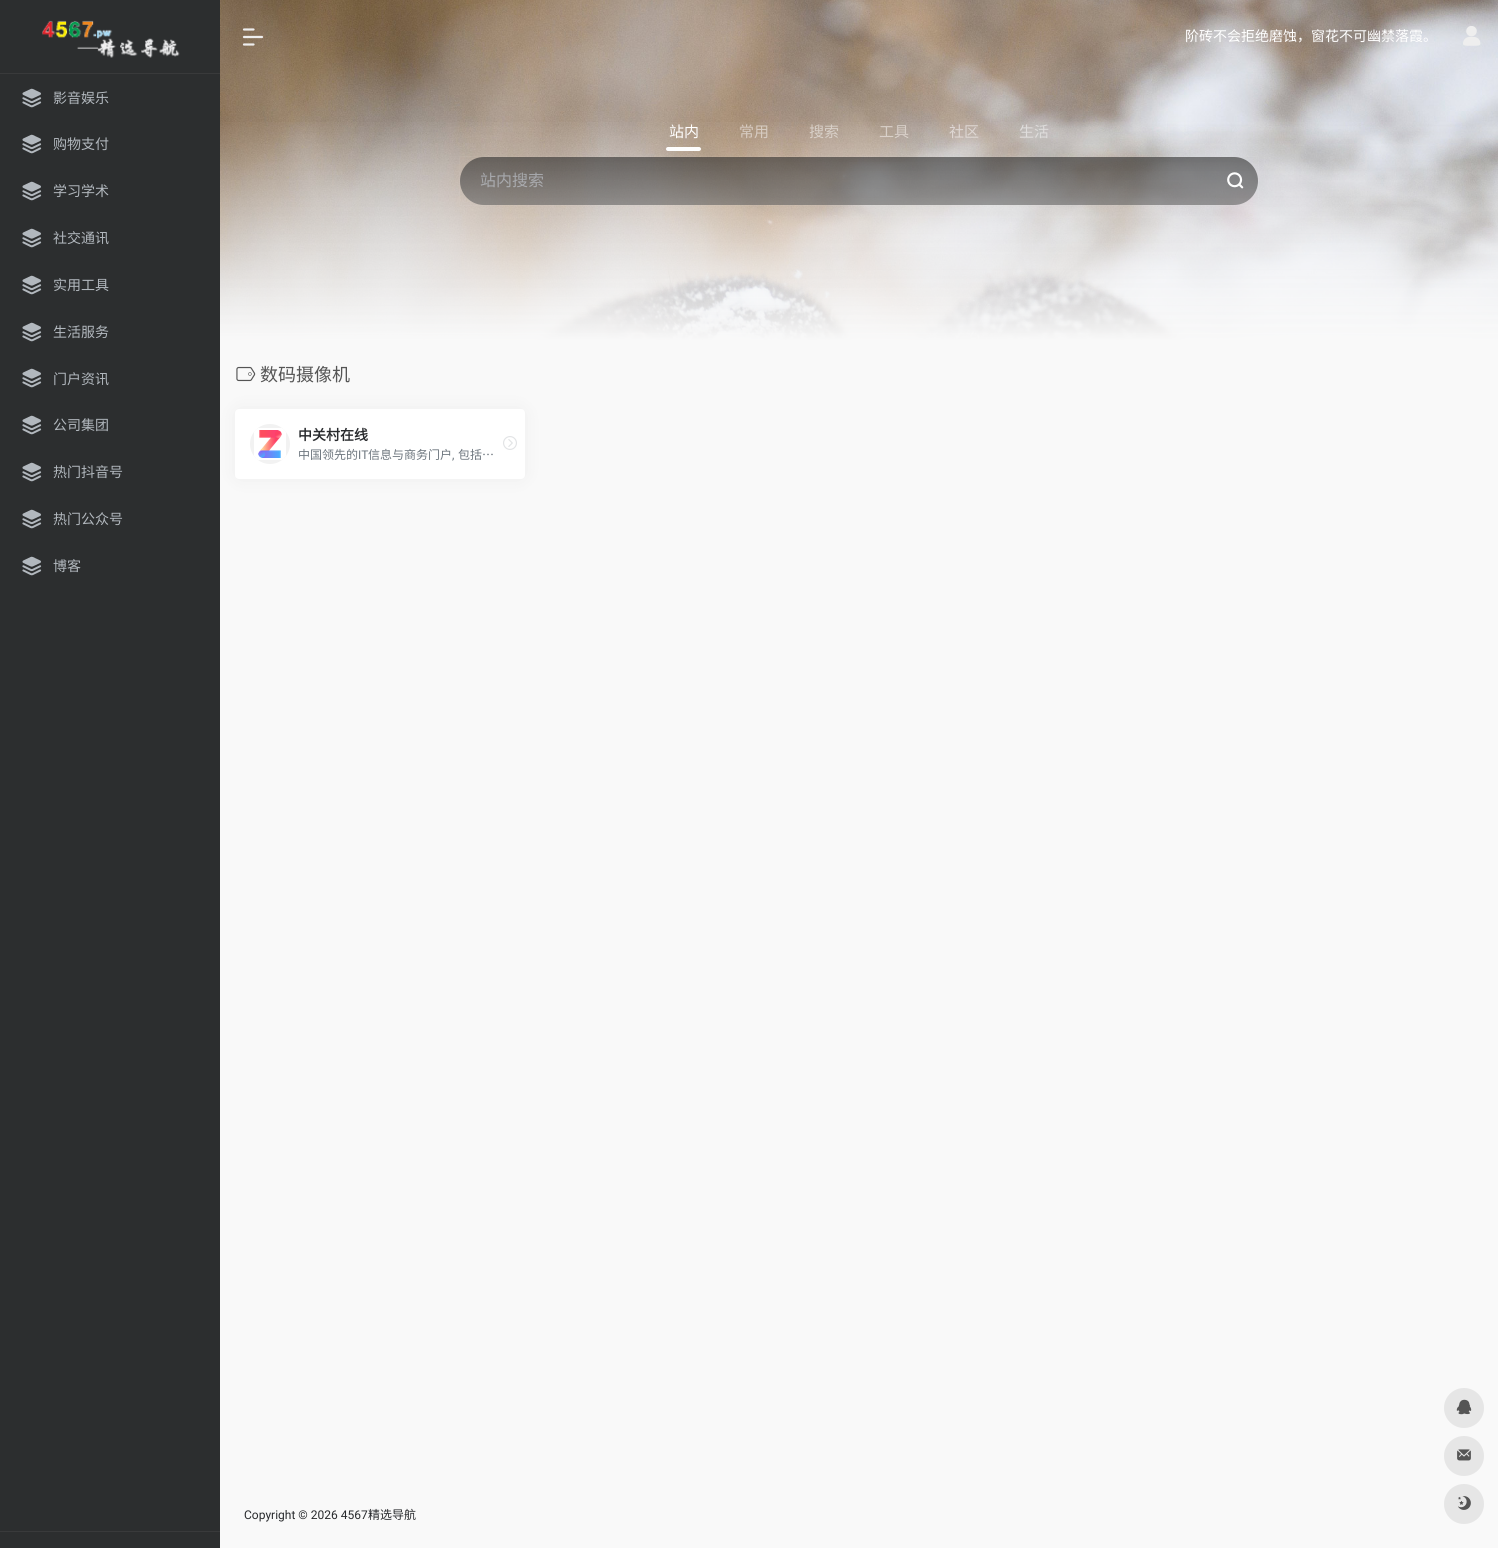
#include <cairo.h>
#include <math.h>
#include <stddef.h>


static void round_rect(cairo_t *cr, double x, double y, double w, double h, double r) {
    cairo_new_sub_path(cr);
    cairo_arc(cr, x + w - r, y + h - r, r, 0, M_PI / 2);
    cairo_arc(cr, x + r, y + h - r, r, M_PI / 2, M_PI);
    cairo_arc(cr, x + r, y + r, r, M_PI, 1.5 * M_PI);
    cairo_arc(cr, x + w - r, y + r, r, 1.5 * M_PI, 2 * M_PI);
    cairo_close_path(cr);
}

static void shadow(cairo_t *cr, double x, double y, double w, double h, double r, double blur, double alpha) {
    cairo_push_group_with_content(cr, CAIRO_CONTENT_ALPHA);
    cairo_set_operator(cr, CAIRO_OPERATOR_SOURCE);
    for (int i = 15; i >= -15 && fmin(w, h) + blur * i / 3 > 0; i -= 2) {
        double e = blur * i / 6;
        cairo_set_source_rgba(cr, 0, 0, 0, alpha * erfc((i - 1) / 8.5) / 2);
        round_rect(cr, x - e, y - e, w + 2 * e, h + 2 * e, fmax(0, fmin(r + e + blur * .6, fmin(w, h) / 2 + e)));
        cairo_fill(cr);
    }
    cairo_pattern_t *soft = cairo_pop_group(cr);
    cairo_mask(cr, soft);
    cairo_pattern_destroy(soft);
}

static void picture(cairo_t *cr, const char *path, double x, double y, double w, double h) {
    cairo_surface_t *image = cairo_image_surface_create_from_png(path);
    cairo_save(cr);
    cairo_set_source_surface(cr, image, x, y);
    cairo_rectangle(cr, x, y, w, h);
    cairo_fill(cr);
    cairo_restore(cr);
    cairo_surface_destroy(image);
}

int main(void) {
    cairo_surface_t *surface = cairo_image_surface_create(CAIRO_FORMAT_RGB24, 1498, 1548);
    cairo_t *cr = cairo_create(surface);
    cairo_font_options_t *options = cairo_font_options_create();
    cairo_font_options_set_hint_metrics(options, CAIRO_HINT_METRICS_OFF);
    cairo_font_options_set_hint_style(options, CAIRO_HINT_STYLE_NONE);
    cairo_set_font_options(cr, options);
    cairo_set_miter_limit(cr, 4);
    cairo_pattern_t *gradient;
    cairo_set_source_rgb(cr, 0.976, 0.976, 0.976);
    cairo_paint(cr);
    cairo_set_source_rgb(cr, 0.62, 0.62, 0.62);
    shadow(cr, 240, 414, 280, 60, 0, 10, 0.2);
    cairo_set_source_rgb(cr, 0.173, 0.18, 0.184);
    cairo_rectangle(cr, 0, 0, 220, 1548);
    cairo_fill(cr);
    cairo_set_source_rgb(cr, 0.224, 0.227, 0.231);
    cairo_rectangle(cr, 0, 73, 220, 1);
    cairo_fill(cr);
    picture(cr, "img1.png", 42, 20, 138, 38);
    picture(cr, "img2.png", 22, 88, 20, 20);
    cairo_select_font_face(cr, "Noto Sans CJK SC", CAIRO_FONT_SLANT_NORMAL, CAIRO_FONT_WEIGHT_NORMAL);
    cairo_set_font_size(cr, 14);
    cairo_set_source_rgb(cr, 0.698, 0.722, 0.745);
    cairo_move_to(cr, 53, 103);
    cairo_show_text(cr, "影音娱乐");
    picture(cr, "img2.png", 22, 134, 20, 20);
    cairo_move_to(cr, 53, 149);
    cairo_show_text(cr, "购物支付");
    picture(cr, "img2.png", 22, 181, 20, 20);
    cairo_move_to(cr, 53, 196);
    cairo_show_text(cr, "学习学术");
    picture(cr, "img2.png", 22, 228, 20, 20);
    cairo_move_to(cr, 53, 243);
    cairo_show_text(cr, "社交通讯");
    picture(cr, "img2.png", 22, 275, 20, 20);
    cairo_move_to(cr, 53, 290);
    cairo_show_text(cr, "实用工具");
    picture(cr, "img2.png", 22, 322, 20, 20);
    cairo_move_to(cr, 53, 337);
    cairo_show_text(cr, "生活服务");
    picture(cr, "img2.png", 22, 368, 20, 20);
    cairo_move_to(cr, 53, 384);
    cairo_show_text(cr, "门户资讯");
    picture(cr, "img2.png", 22, 415, 20, 20);
    cairo_move_to(cr, 53, 430);
    cairo_show_text(cr, "公司集团");
    picture(cr, "img2.png", 22, 462, 20, 20);
    cairo_move_to(cr, 53, 477);
    cairo_show_text(cr, "热门抖音号");
    picture(cr, "img2.png", 22, 509, 20, 20);
    cairo_move_to(cr, 53, 524);
    cairo_show_text(cr, "热门公众号");
    picture(cr, "img2.png", 22, 556, 20, 20);
    cairo_move_to(cr, 53, 571);
    cairo_show_text(cr, "博客");
    cairo_set_source_rgb(cr, 0.224, 0.227, 0.231);
    cairo_rectangle(cr, 0, 1531, 220, 1);
    cairo_fill(cr);
    picture(cr, "img4.png", 220, 0, 1278, 340);
    cairo_new_path(cr);
    cairo_move_to(cr, 244, 29.5);
    cairo_line_to(cr, 253.5, 29.5);
    cairo_move_to(cr, 244, 37);
    cairo_line_to(cr, 262, 37);
    cairo_move_to(cr, 244, 44.5);
    cairo_line_to(cr, 253.5, 44.5);
    cairo_set_source_rgb(cr, 0.933, 0.933, 0.933);
    cairo_set_line_width(cr, 2.2);
    cairo_set_line_cap(cr, CAIRO_LINE_CAP_ROUND);
    cairo_set_line_join(cr, CAIRO_LINE_JOIN_ROUND);
    cairo_stroke(cr);
    cairo_set_source_rgb(cr, 1, 1, 1);
    cairo_move_to(cr, 1185, 41);
    cairo_show_text(cr, "阶砖不会拒绝磨蚀，窗花不可幽禁落霞。");
    picture(cr, "img3.png", 1463, 26, 18, 20);
    cairo_set_font_size(cr, 15);
    cairo_move_to(cr, 669, 137);
    cairo_show_text(cr, "站内");
    cairo_set_source_rgb(cr, 0.831, 0.784, 0.741);
    cairo_move_to(cr, 739, 137);
    cairo_show_text(cr, "常用");
    cairo_set_source_rgb(cr, 0.839, 0.804, 0.773);
    cairo_move_to(cr, 809, 137);
    cairo_show_text(cr, "搜索");
    cairo_move_to(cr, 879, 137);
    cairo_show_text(cr, "工具");
    cairo_set_source_rgb(cr, 0.863, 0.831, 0.816);
    cairo_move_to(cr, 949, 137);
    cairo_show_text(cr, "社区");
    cairo_set_source_rgb(cr, 0.867, 0.859, 0.855);
    cairo_move_to(cr, 1019, 137);
    cairo_show_text(cr, "生活");
    cairo_set_source_rgb(cr, 1, 1, 1);
    round_rect(cr, 666, 147, 35, 4, 2);
    cairo_fill(cr);
    cairo_set_source_rgba(cr, 0, 0, 0, 0.6);
    round_rect(cr, 460, 157, 798, 48, 24);
    cairo_fill(cr);
    cairo_rectangle(cr, 459.5, 156.5, 799, 49);
    cairo_set_source_rgba(cr, 1, 1, 1, 0.05);
    cairo_set_line_width(cr, 1);
    cairo_set_line_cap(cr, CAIRO_LINE_CAP_BUTT);
    cairo_set_line_join(cr, CAIRO_LINE_JOIN_MITER);
    cairo_stroke(cr);
    cairo_set_font_size(cr, 16);
    cairo_set_source_rgb(cr, 0.533, 0.541, 0.561);
    cairo_move_to(cr, 480, 186);
    cairo_show_text(cr, "站内搜索");
    picture(cr, "img5.png", 1227, 172, 17, 17);
    gradient = cairo_pattern_create_linear(859, 341, 859, 61);
    cairo_pattern_add_color_stop_rgba(gradient, 0, 0.976, 0.976, 0.976, 1);
    cairo_pattern_add_color_stop_rgba(gradient, 0.8, 0.976, 0.976, 0.976, 0);
    cairo_set_source(cr, gradient);
    cairo_pattern_destroy(gradient);
    cairo_rectangle(cr, 220, 122, 1278, 218);
    cairo_fill(cr);
    picture(cr, "img6.png", 236, 366, 20, 16);
    cairo_set_font_size(cr, 18);
    cairo_set_source_rgb(cr, 0.333, 0.333, 0.333);
    cairo_move_to(cr, 260, 381);
    cairo_show_text(cr, "数码摄像机");
    cairo_set_source_rgb(cr, 1, 1, 1);
    round_rect(cr, 235, 409, 290, 70, 4);
    cairo_fill(cr);
    cairo_set_source_rgb(cr, 0.949, 0.949, 0.949);
    cairo_arc(cr, 270, 444, 20, 0, 2 * M_PI);
    cairo_fill(cr);
    picture(cr, "img7.png", 254, 428, 32, 32);
    cairo_select_font_face(cr, "Noto Sans CJK SC", CAIRO_FONT_SLANT_NORMAL, CAIRO_FONT_WEIGHT_BOLD);
    cairo_set_font_size(cr, 14);
    cairo_set_source_rgb(cr, 0.157, 0.165, 0.176);
    cairo_move_to(cr, 298, 440);
    cairo_show_text(cr, "中关村在线");
    cairo_select_font_face(cr, "Noto Sans CJK SC", CAIRO_FONT_SLANT_NORMAL, CAIRO_FONT_WEIGHT_NORMAL);
    cairo_set_font_size(cr, 12);
    cairo_set_source_rgb(cr, 0.424, 0.459, 0.49);
    cairo_move_to(cr, 298, 459);
    cairo_show_text(cr, "中国领先的");
    cairo_select_font_face(cr, "Roboto", CAIRO_FONT_SLANT_NORMAL, CAIRO_FONT_WEIGHT_NORMAL);
    cairo_move_to(cr, 358, 459);
    cairo_show_text(cr, "IT");
    cairo_select_font_face(cr, "Noto Sans CJK SC", CAIRO_FONT_SLANT_NORMAL, CAIRO_FONT_WEIGHT_NORMAL);
    cairo_move_to(cr, 368, 459);
    cairo_show_text(cr, "信息与商务门户");
    cairo_select_font_face(cr, "Roboto", CAIRO_FONT_SLANT_NORMAL, CAIRO_FONT_WEIGHT_NORMAL);
    cairo_move_to(cr, 452, 459);
    cairo_show_text(cr, ",");
    cairo_select_font_face(cr, "Noto Sans CJK SC", CAIRO_FONT_SLANT_NORMAL, CAIRO_FONT_WEIGHT_NORMAL);
    cairo_move_to(cr, 458, 459);
    cairo_show_text(cr, "包括…");
    picture(cr, "img8.png", 503, 436, 14, 14);
    cairo_select_font_face(cr, "Roboto", CAIRO_FONT_SLANT_NORMAL, CAIRO_FONT_WEIGHT_NORMAL);
    cairo_set_source_rgb(cr, 0.157, 0.165, 0.176);
    cairo_move_to(cr, 244, 1519);
    cairo_show_text(cr, "Copyright © 2026 4567");
    cairo_select_font_face(cr, "Noto Sans CJK SC", CAIRO_FONT_SLANT_NORMAL, CAIRO_FONT_WEIGHT_NORMAL);
    cairo_move_to(cr, 368, 1519);
    cairo_show_text(cr, "精选导航");
    cairo_set_source_rgb(cr, 0.902, 0.902, 0.902);
    cairo_new_path(cr);
    cairo_arc(cr, 1464, 1408, 20, 0, 2 * M_PI);
    cairo_fill(cr);
    picture(cr, "img9.png", 1456, 1399, 16, 16);
    cairo_arc(cr, 1464, 1456, 20, 0, 2 * M_PI);
    cairo_fill(cr);
    picture(cr, "img10.png", 1457, 1449, 14, 12);
    cairo_arc(cr, 1464, 1504, 20, 0, 2 * M_PI);
    cairo_fill(cr);
    picture(cr, "img11.png", 1458, 1496, 13, 14);
    cairo_surface_write_to_png(surface, "page.png");
    cairo_font_options_destroy(options);
    cairo_destroy(cr);
    cairo_surface_destroy(surface);
    return 0;
}
